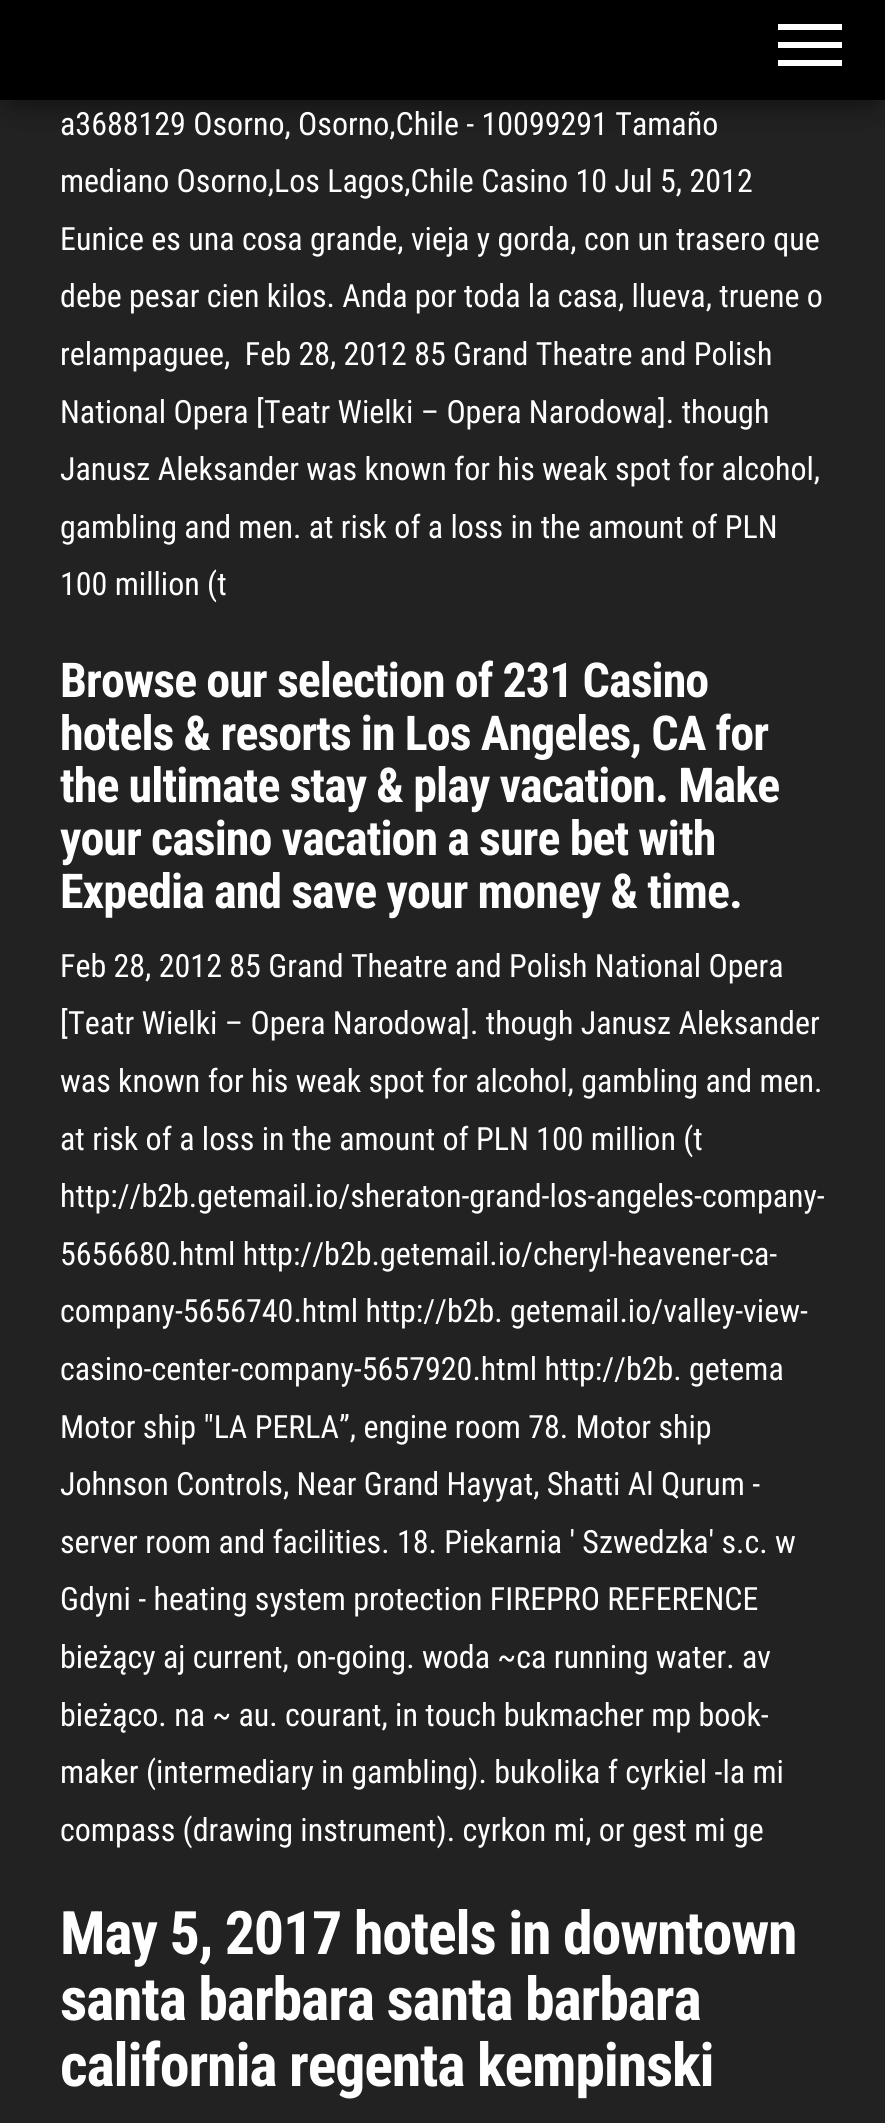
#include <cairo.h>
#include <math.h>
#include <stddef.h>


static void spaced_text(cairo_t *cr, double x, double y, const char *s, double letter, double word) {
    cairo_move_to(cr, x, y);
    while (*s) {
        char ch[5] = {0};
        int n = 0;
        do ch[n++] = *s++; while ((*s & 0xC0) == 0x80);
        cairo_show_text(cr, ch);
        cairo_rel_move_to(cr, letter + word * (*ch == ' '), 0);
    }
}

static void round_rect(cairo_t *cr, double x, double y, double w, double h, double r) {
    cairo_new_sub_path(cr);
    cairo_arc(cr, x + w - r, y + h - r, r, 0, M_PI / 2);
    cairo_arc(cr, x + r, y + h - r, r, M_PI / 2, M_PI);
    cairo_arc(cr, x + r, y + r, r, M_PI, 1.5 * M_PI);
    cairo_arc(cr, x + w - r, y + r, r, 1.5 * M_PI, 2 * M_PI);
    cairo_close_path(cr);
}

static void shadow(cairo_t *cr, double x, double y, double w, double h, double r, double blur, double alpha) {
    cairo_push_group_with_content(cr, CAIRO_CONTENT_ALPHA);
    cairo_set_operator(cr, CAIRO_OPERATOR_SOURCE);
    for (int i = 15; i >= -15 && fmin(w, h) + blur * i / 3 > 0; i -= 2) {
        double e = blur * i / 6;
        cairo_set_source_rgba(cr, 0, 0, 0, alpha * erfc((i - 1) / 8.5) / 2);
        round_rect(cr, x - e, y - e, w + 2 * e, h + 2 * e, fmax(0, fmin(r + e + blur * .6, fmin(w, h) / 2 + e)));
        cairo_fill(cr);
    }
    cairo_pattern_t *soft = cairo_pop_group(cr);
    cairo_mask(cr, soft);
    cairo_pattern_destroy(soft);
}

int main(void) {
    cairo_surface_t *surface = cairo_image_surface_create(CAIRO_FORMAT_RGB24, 885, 2123);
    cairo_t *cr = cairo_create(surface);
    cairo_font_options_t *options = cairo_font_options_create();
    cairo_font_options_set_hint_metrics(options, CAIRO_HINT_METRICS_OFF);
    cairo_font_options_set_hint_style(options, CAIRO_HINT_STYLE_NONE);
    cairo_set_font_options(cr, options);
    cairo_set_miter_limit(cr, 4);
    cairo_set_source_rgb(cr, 0.133, 0.133, 0.133);
    cairo_paint(cr);
    cairo_set_source_rgb(cr, 0, 0, 0);
    shadow(cr, 10, 26, 866, 80, 0, 10, 0.2);
    shadow(cr, 0, 6, 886, 100, 0, 20, 0.12);
    shadow(cr, 24, 44, 838, 52, 0, 20, 0.42);
    cairo_set_source_rgb(cr, 0, 0, 0);
    cairo_rectangle(cr, 0, 0, 885, 100);
    cairo_fill(cr);
    cairo_set_source_rgb(cr, 1, 1, 1);
    cairo_rectangle(cr, 778, 24, 64, 6);
    cairo_fill(cr);
    cairo_rectangle(cr, 778, 42, 64, 6);
    cairo_fill(cr);
    cairo_rectangle(cr, 778, 60, 64, 6);
    cairo_fill(cr);
    cairo_select_font_face(cr, "Roboto Condensed", CAIRO_FONT_SLANT_NORMAL, CAIRO_FONT_WEIGHT_NORMAL);
    cairo_set_font_size(cr, 32);
    cairo_move_to(cr, 60, 135);
    cairo_show_text(cr, "a3688129 Osorno, Osorno,Chile - 10099291 Tamaño");
    cairo_move_to(cr, 60, 192);
    cairo_show_text(cr, "mediano Osorno,Los Lagos,Chile Casino 10 Jul 5, 2012");
    cairo_move_to(cr, 60, 250);
    cairo_show_text(cr, "Eunice es una cosa grande, vieja y gorda, con un trasero que");
    cairo_move_to(cr, 60, 307);
    cairo_show_text(cr, "debe pesar cien kilos. Anda por toda la casa, llueva, truene o");
    cairo_move_to(cr, 60, 365);
    cairo_show_text(cr, "relampaguee,  Feb 28, 2012 85 Grand Theatre and Polish");
    cairo_move_to(cr, 60, 423);
    cairo_show_text(cr, "National Opera [Teatr Wielki – Opera Narodowa]. though");
    cairo_move_to(cr, 60, 480);
    cairo_show_text(cr, "Janusz Aleksander was known for his weak spot for alcohol,");
    cairo_move_to(cr, 60, 538);
    cairo_show_text(cr, "gambling and men. at risk of a loss in the amount of PLN");
    cairo_move_to(cr, 60, 595);
    cairo_show_text(cr, "100 million (t");
    cairo_select_font_face(cr, "Roboto Condensed", CAIRO_FONT_SLANT_NORMAL, CAIRO_FONT_WEIGHT_BOLD);
    cairo_set_font_size(cr, 48);
    spaced_text(cr, 60, 697, "Browse our selection of 231 Casino", -0.95, 0);
    spaced_text(cr, 60, 750, "hotels & resorts in Los Angeles, CA for", -0.95, 0);
    spaced_text(cr, 60, 802, "the ultimate stay & play vacation. Make", -0.95, 0);
    spaced_text(cr, 60, 855, "your casino vacation a sure bet with", -0.95, 0);
    spaced_text(cr, 60, 908, "Expedia and save your money & time.", -0.95, 0);
    cairo_select_font_face(cr, "Roboto Condensed", CAIRO_FONT_SLANT_NORMAL, CAIRO_FONT_WEIGHT_NORMAL);
    cairo_set_font_size(cr, 32);
    cairo_move_to(cr, 60, 977);
    cairo_show_text(cr, "Feb 28, 2012 85 Grand Theatre and Polish National Opera");
    cairo_move_to(cr, 60, 1034);
    cairo_show_text(cr, "[Teatr Wielki – Opera Narodowa]. though Janusz Aleksander");
    cairo_move_to(cr, 60, 1092);
    cairo_show_text(cr, "was known for his weak spot for alcohol, gambling and men.");
    cairo_move_to(cr, 60, 1150);
    cairo_show_text(cr, "at risk of a loss in the amount of PLN 100 million (t");
    cairo_move_to(cr, 60, 1207);
    cairo_show_text(cr, "http://b2b.getemail.io/sheraton-grand-los-angeles-company-");
    cairo_move_to(cr, 60, 1265);
    cairo_show_text(cr, "5656680.html http://b2b.getemail.io/cheryl-heavener-ca-");
    cairo_move_to(cr, 60, 1322);
    cairo_show_text(cr, "company-5656740.html http://b2b. getemail.io/valley-view-");
    cairo_move_to(cr, 60, 1380);
    cairo_show_text(cr, "casino-center-company-5657920.html http://b2b. getema");
    cairo_move_to(cr, 60, 1438);
    cairo_show_text(cr, "Motor ship \"LA PERLA”, engine room 78. Motor ship");
    cairo_move_to(cr, 60, 1495);
    cairo_show_text(cr, "Johnson Controls, Near Grand Hayyat, Shatti Al Qurum -");
    cairo_move_to(cr, 60, 1553);
    cairo_show_text(cr, "server room and facilities. 18. Piekarnia ' Szwedzka' s.c. w");
    cairo_move_to(cr, 60, 1610);
    cairo_show_text(cr, "Gdyni - heating system protection FIREPRO REFERENCE");
    cairo_move_to(cr, 60, 1668);
    cairo_show_text(cr, "bieżący aj current, on-going. woda ~ca running water. av");
    cairo_move_to(cr, 60, 1726);
    cairo_show_text(cr, "bieżąco. na ~ au. courant, in touch bukmacher mp book-");
    cairo_move_to(cr, 60, 1783);
    cairo_show_text(cr, "maker (intermediary in gambling). bukolika f cyrkiel -la mi");
    cairo_move_to(cr, 60, 1841);
    cairo_show_text(cr, "compass (drawing instrument). cyrkon mi, or gest mi ge");
    cairo_select_font_face(cr, "Roboto Condensed", CAIRO_FONT_SLANT_NORMAL, CAIRO_FONT_WEIGHT_BOLD);
    cairo_set_font_size(cr, 60);
    spaced_text(cr, 60, 1954, "May 5, 2017 hotels in downtown", -1.2, 0);
    spaced_text(cr, 60, 2020, "santa barbara santa barbara", -1.2, 0);
    spaced_text(cr, 60, 2086, "california regenta kempinski", -1.2, 0);
    cairo_surface_write_to_png(surface, "page.png");
    cairo_font_options_destroy(options);
    cairo_destroy(cr);
    cairo_surface_destroy(surface);
    return 0;
}
